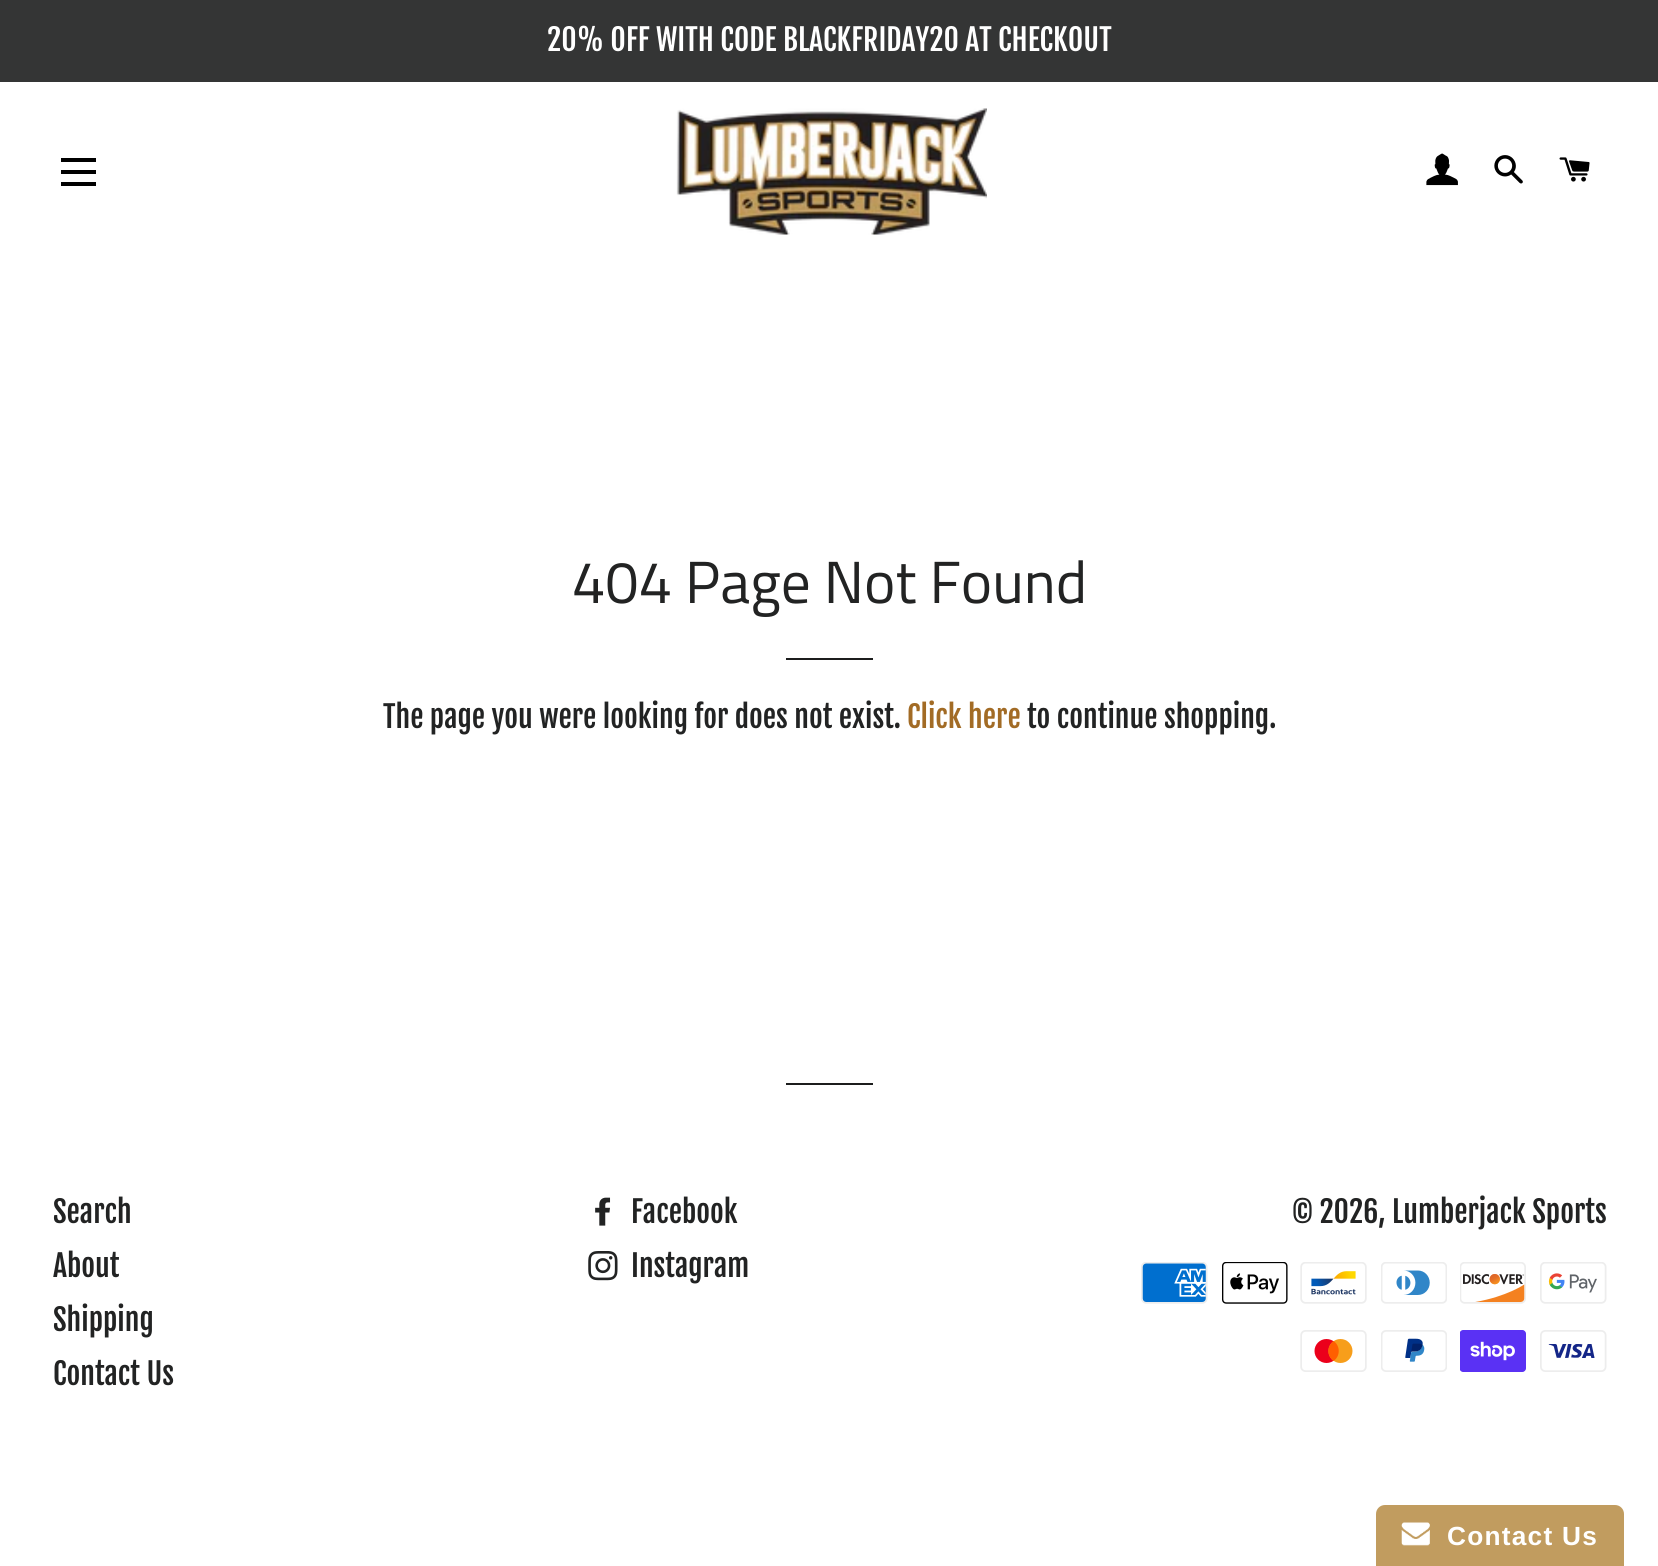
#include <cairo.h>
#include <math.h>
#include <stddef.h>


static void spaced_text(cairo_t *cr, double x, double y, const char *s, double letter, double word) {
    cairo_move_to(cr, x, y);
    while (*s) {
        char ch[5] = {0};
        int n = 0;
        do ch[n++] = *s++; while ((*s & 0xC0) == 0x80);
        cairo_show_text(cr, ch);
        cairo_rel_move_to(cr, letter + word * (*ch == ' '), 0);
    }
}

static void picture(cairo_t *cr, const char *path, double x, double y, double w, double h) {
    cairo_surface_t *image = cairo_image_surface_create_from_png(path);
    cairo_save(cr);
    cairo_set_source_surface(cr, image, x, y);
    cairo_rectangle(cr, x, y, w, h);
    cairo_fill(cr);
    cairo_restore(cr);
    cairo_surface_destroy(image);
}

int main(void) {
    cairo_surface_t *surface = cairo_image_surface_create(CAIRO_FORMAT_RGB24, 1658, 1566);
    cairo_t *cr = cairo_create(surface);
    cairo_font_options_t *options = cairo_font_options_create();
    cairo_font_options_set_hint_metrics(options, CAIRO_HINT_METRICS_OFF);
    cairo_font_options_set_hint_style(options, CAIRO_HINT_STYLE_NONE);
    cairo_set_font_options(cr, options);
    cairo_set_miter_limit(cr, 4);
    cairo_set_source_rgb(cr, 1, 1, 1);
    cairo_paint(cr);
    cairo_set_source_rgb(cr, 0.204, 0.208, 0.208);
    cairo_rectangle(cr, 0, 0, 1658, 82);
    cairo_fill(cr);
    cairo_select_font_face(cr, "Fjalla One", CAIRO_FONT_SLANT_NORMAL, CAIRO_FONT_WEIGHT_NORMAL);
    cairo_set_font_size(cr, 29.75);
    cairo_set_source_rgb(cr, 1, 1, 1);
    cairo_move_to(cr, 547, 51);
    cairo_show_text(cr, "20% OFF WITH CODE BLACKFRIDAY20 AT CHECKOUT");
    cairo_set_source_rgb(cr, 0, 0, 0);
    cairo_rectangle(cr, 61, 158, 35, 4);
    cairo_fill(cr);
    cairo_rectangle(cr, 61, 170, 35, 4);
    cairo_fill(cr);
    cairo_rectangle(cr, 61, 182, 35, 4);
    cairo_fill(cr);
    picture(cr, "img1.png", 676, 108, 311, 127);
    picture(cr, "img2.png", 1426, 153, 32, 33);
    picture(cr, "img3.png", 1494, 155, 29, 29);
    picture(cr, "img4.png", 1559, 157, 31, 25);
    cairo_select_font_face(cr, "Titillium Web", CAIRO_FONT_SLANT_NORMAL, CAIRO_FONT_WEIGHT_NORMAL);
    cairo_set_font_size(cr, 59.5);
    cairo_set_source_rgb(cr, 0.133, 0.137, 0.137);
    cairo_move_to(cr, 572, 603);
    cairo_show_text(cr, "404 Page Not Found");
    cairo_set_source_rgb(cr, 0.11, 0.114, 0.114);
    cairo_rectangle(cr, 786, 658, 87, 2);
    cairo_fill(cr);
    cairo_select_font_face(cr, "Fjalla One", CAIRO_FONT_SLANT_NORMAL, CAIRO_FONT_WEIGHT_NORMAL);
    cairo_set_font_size(cr, 29.75);
    cairo_set_source_rgb(cr, 0.133, 0.137, 0.137);
    cairo_move_to(cr, 383, 728);
    cairo_show_text(cr, "The page you were looking for does not exist.");
    cairo_set_source_rgb(cr, 0.635, 0.42, 0.145);
    cairo_move_to(cr, 907, 728);
    cairo_show_text(cr, "Click here");
    cairo_set_source_rgb(cr, 0.133, 0.137, 0.137);
    cairo_move_to(cr, 1027, 728);
    cairo_show_text(cr, "to continue shopping.");
    cairo_set_source_rgb(cr, 0.11, 0.114, 0.114);
    cairo_rectangle(cr, 786, 1083, 87, 2);
    cairo_fill(cr);
    cairo_set_source_rgb(cr, 0.133, 0.137, 0.137);
    cairo_move_to(cr, 53, 1223);
    cairo_show_text(cr, "Search");
    cairo_move_to(cr, 53, 1277);
    cairo_show_text(cr, "About");
    cairo_move_to(cr, 53, 1331);
    cairo_show_text(cr, "Shipping");
    cairo_move_to(cr, 53, 1385);
    cairo_show_text(cr, "Contact Us");
    picture(cr, "img5.png", 595, 1197, 16, 29);
    cairo_move_to(cr, 631, 1223);
    cairo_show_text(cr, "Facebook");
    picture(cr, "img6.png", 588, 1251, 30, 30);
    cairo_move_to(cr, 631, 1277);
    cairo_show_text(cr, "Instagram");
    cairo_move_to(cr, 1292, 1223);
    cairo_show_text(cr, "© 2026, Lumberjack Sports");
    picture(cr, "img7.png", 1141, 1262, 67, 42);
    picture(cr, "img8.png", 1222, 1262, 66, 42);
    picture(cr, "img9.png", 1300, 1262, 67, 42);
    picture(cr, "img10.png", 1381, 1262, 66, 42);
    picture(cr, "img11.png", 1460, 1262, 66, 42);
    picture(cr, "img12.png", 1540, 1262, 67, 42);
    picture(cr, "img13.png", 1300, 1330, 67, 42);
    picture(cr, "img14.png", 1381, 1330, 66, 42);
    picture(cr, "img15.png", 1460, 1330, 66, 42);
    picture(cr, "img16.png", 1540, 1330, 67, 42);
    cairo_set_source_rgb(cr, 0.757, 0.612, 0.373);
    cairo_new_path(cr);
    cairo_move_to(cr, 1385, 1505);
    cairo_line_to(cr, 1615, 1505);
    cairo_curve_to(cr, 1620, 1505, 1624, 1509, 1624, 1514);
    cairo_line_to(cr, 1624, 1566);
    cairo_line_to(cr, 1376, 1566);
    cairo_line_to(cr, 1376, 1514);
    cairo_curve_to(cr, 1376, 1509, 1380, 1505, 1385, 1505);
    cairo_close_path(cr);
    cairo_fill(cr);
    picture(cr, "img17.png", 1401, 1522, 29, 24);
    cairo_select_font_face(cr, "Liberation Sans", CAIRO_FONT_SLANT_NORMAL, CAIRO_FONT_WEIGHT_BOLD);
    cairo_set_font_size(cr, 26.25);
    cairo_set_source_rgb(cr, 1, 1, 1);
    spaced_text(cr, 1447, 1545, "Contact Us", 1.25, 0);
    cairo_surface_write_to_png(surface, "page.png");
    cairo_font_options_destroy(options);
    cairo_destroy(cr);
    cairo_surface_destroy(surface);
    return 0;
}
